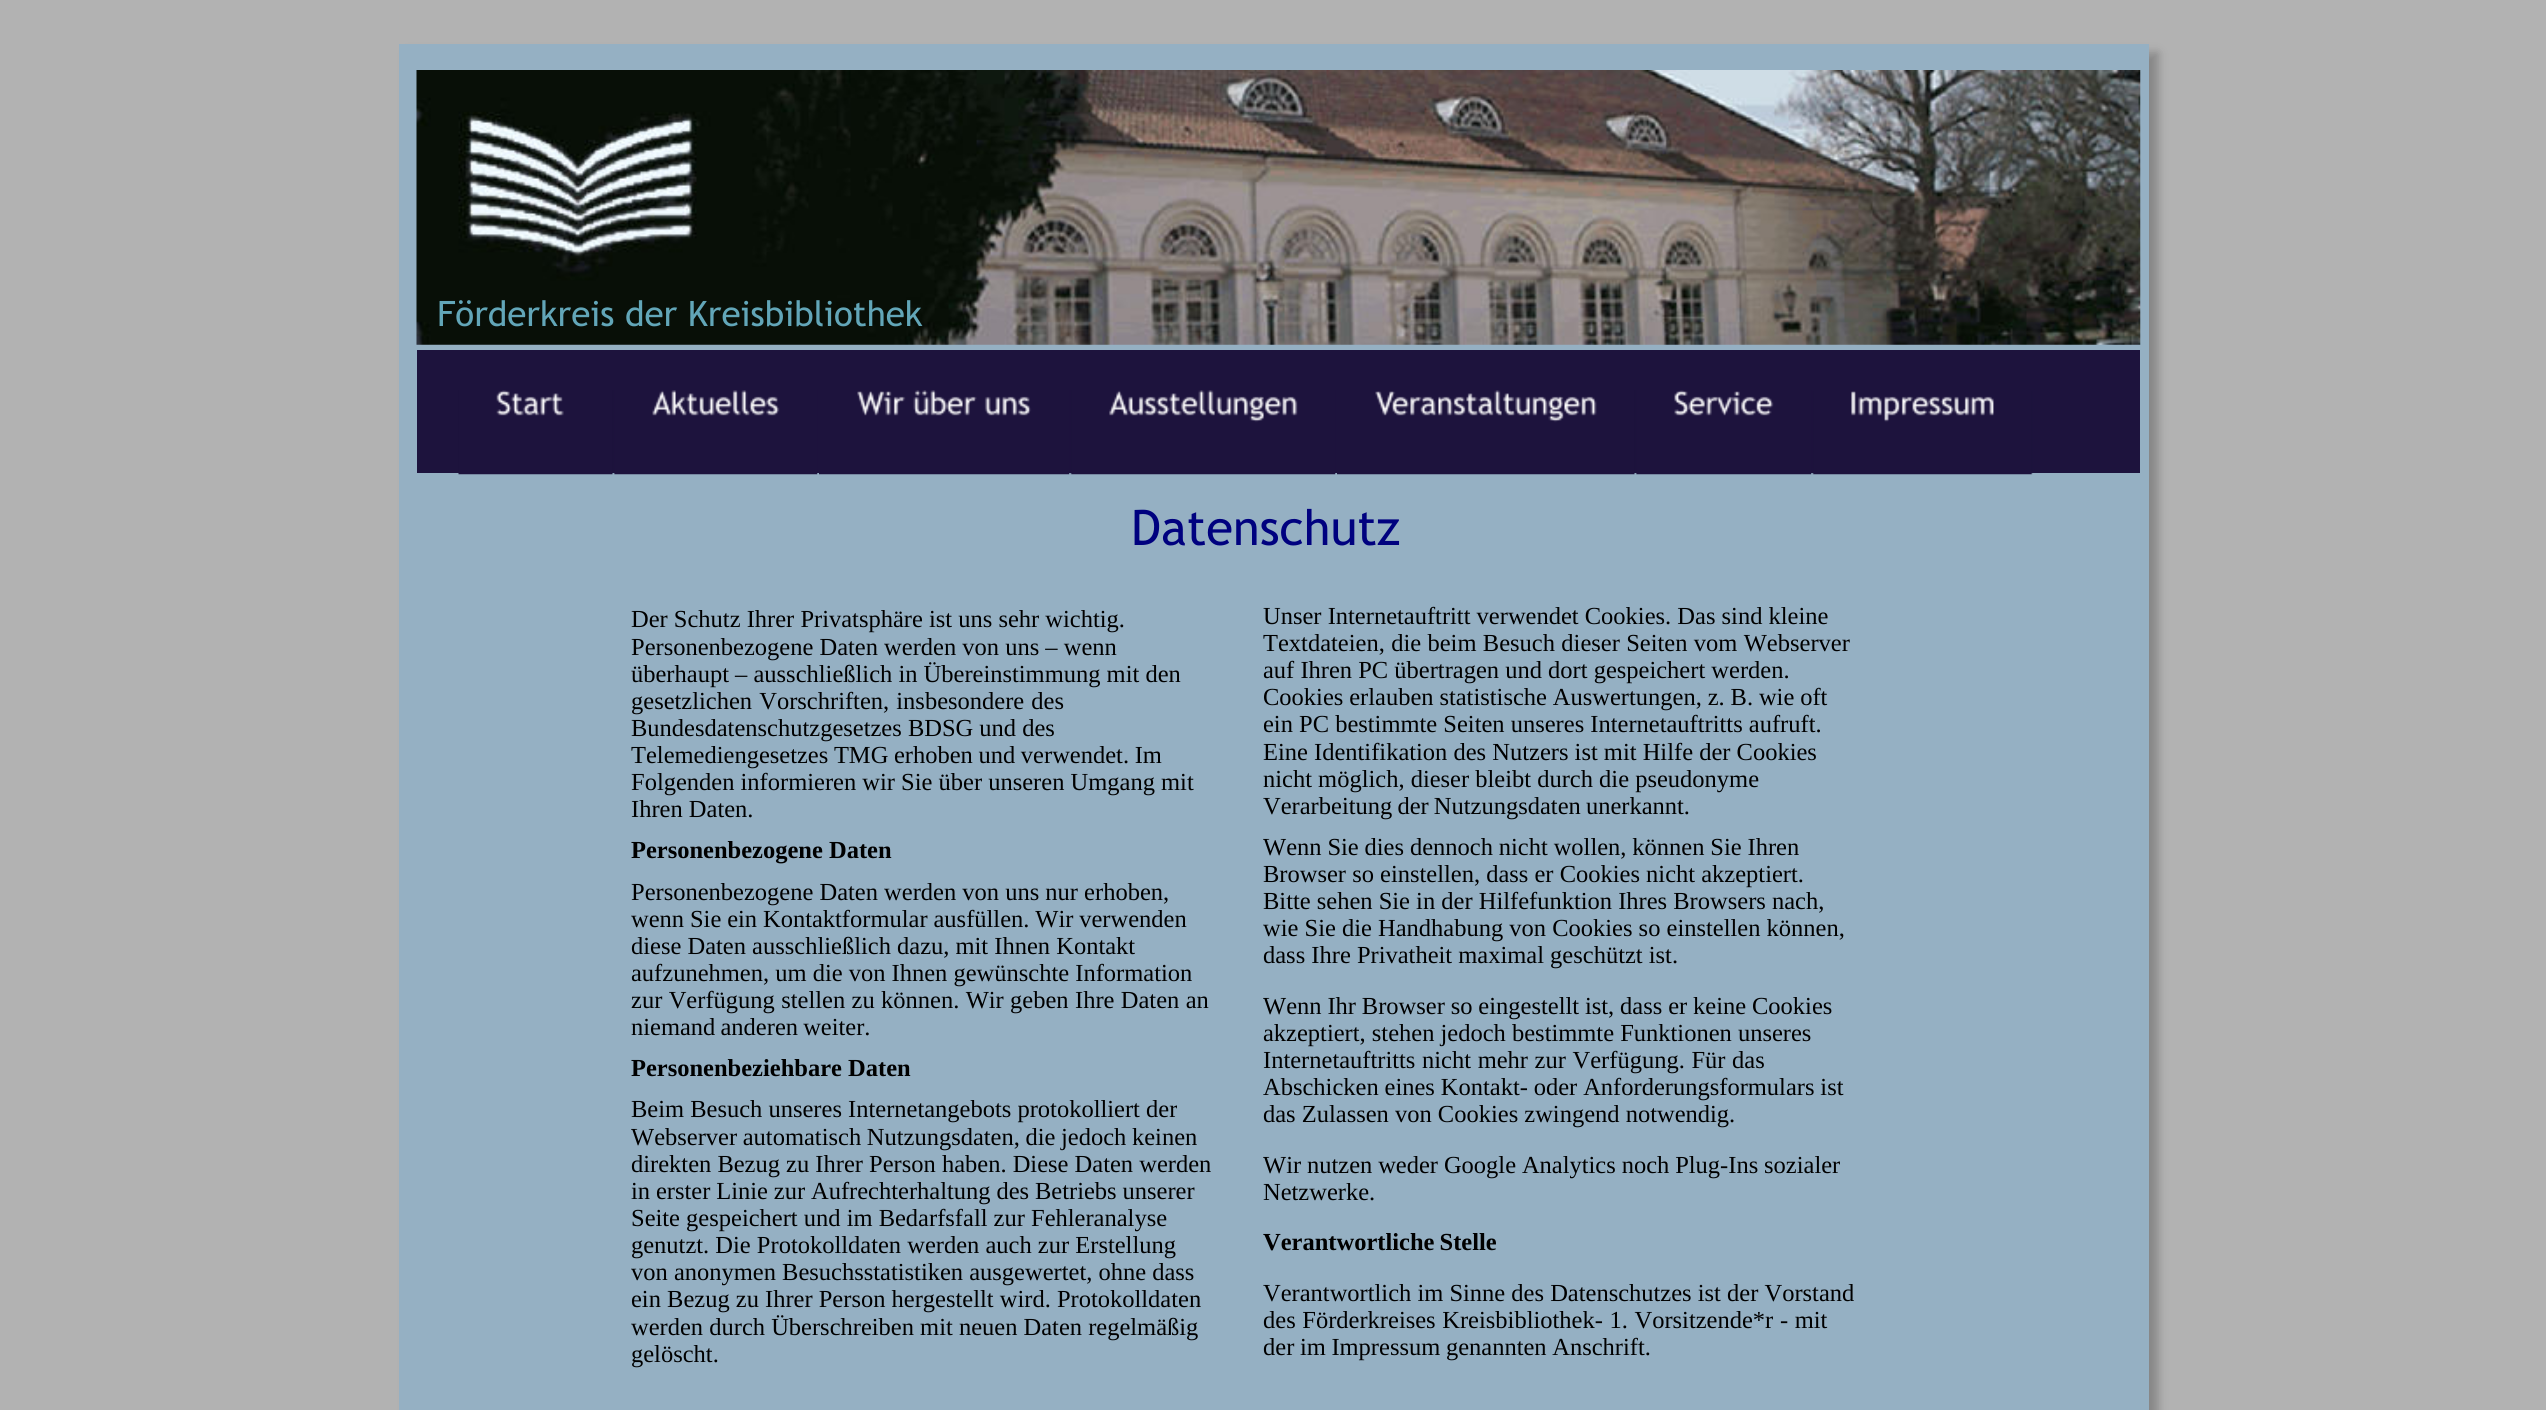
#include <cairo.h>
#include <math.h>
#include <stddef.h>


static void spaced_text(cairo_t *cr, double x, double y, const char *s, double letter, double word) {
    cairo_move_to(cr, x, y);
    while (*s) {
        char ch[5] = {0};
        int n = 0;
        do ch[n++] = *s++; while ((*s & 0xC0) == 0x80);
        cairo_show_text(cr, ch);
        cairo_rel_move_to(cr, letter + word * (*ch == ' '), 0);
    }
}

static void round_rect(cairo_t *cr, double x, double y, double w, double h, double r) {
    cairo_new_sub_path(cr);
    cairo_arc(cr, x + w - r, y + h - r, r, 0, M_PI / 2);
    cairo_arc(cr, x + r, y + h - r, r, M_PI / 2, M_PI);
    cairo_arc(cr, x + r, y + r, r, M_PI, 1.5 * M_PI);
    cairo_arc(cr, x + w - r, y + r, r, 1.5 * M_PI, 2 * M_PI);
    cairo_close_path(cr);
}

static void shadow(cairo_t *cr, double x, double y, double w, double h, double r, double blur, double alpha) {
    cairo_push_group_with_content(cr, CAIRO_CONTENT_ALPHA);
    cairo_set_operator(cr, CAIRO_OPERATOR_SOURCE);
    for (int i = 15; i >= -15 && fmin(w, h) + blur * i / 3 > 0; i -= 2) {
        double e = blur * i / 6;
        cairo_set_source_rgba(cr, 0, 0, 0, alpha * erfc((i - 1) / 8.5) / 2);
        round_rect(cr, x - e, y - e, w + 2 * e, h + 2 * e, fmax(0, fmin(r + e + blur * .6, fmin(w, h) / 2 + e)));
        cairo_fill(cr);
    }
    cairo_pattern_t *soft = cairo_pop_group(cr);
    cairo_mask(cr, soft);
    cairo_pattern_destroy(soft);
}

static void picture(cairo_t *cr, const char *path, double x, double y, double w, double h) {
    cairo_surface_t *image = cairo_image_surface_create_from_png(path);
    cairo_save(cr);
    cairo_set_source_surface(cr, image, x, y);
    cairo_rectangle(cr, x, y, w, h);
    cairo_fill(cr);
    cairo_restore(cr);
    cairo_surface_destroy(image);
}

int main(void) {
    cairo_surface_t *surface = cairo_image_surface_create(CAIRO_FORMAT_RGB24, 2546, 1410);
    cairo_t *cr = cairo_create(surface);
    cairo_font_options_t *options = cairo_font_options_create();
    cairo_font_options_set_hint_metrics(options, CAIRO_HINT_METRICS_OFF);
    cairo_font_options_set_hint_style(options, CAIRO_HINT_STYLE_NONE);
    cairo_set_font_options(cr, options);
    cairo_set_miter_limit(cr, 4);
    cairo_set_source_rgb(cr, 0.698, 0.698, 0.698);
    cairo_paint(cr);
    cairo_set_source_rgb(cr, 0, 0, 0);
    shadow(cr, 408, 53, 1750, 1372, 0, 5, 0.25);
    cairo_set_source_rgb(cr, 0.584, 0.69, 0.765);
    cairo_rectangle(cr, 399, 44, 1750, 1366);
    cairo_fill(cr);
    picture(cr, "img1.png", 416, 70, 1725, 275);
    cairo_select_font_face(cr, "Trebuchet MS", CAIRO_FONT_SLANT_NORMAL, CAIRO_FONT_WEIGHT_NORMAL);
    cairo_set_font_size(cr, 35);
    cairo_set_source_rgb(cr, 0.384, 0.651, 0.722);
    cairo_move_to(cr, 437, 326);
    cairo_show_text(cr, "Förderkreis der Kreisbibliothek");
    cairo_set_source_rgb(cr, 0.114, 0.075, 0.239);
    cairo_rectangle(cr, 417, 350, 1723, 123);
    cairo_fill(cr);
    cairo_set_font_size(cr, 49);
    cairo_set_source_rgb(cr, 0, 0.004, 0.498);
    cairo_move_to(cr, 1131, 545);
    cairo_show_text(cr, "Datenschutz");
    cairo_select_font_face(cr, "Liberation Serif", CAIRO_FONT_SLANT_NORMAL, CAIRO_FONT_WEIGHT_NORMAL);
    cairo_set_font_size(cr, 24.5);
    cairo_set_source_rgb(cr, 0, 0, 0);
    cairo_move_to(cr, 631, 627);
    cairo_show_text(cr, "Der Schutz Ihrer Privatsphäre ist uns sehr wichtig.");
    cairo_move_to(cr, 631, 655);
    cairo_show_text(cr, "Personenbezogene Daten werden von uns – wenn");
    cairo_move_to(cr, 631, 682);
    cairo_show_text(cr, "überhaupt – ausschließlich in Übereinstimmung mit den");
    spaced_text(cr, 631, 709, "gesetzlichen Vorschriften, insbesondere des", 0, 1);
    cairo_move_to(cr, 631, 736);
    cairo_show_text(cr, "Bundesdatenschutzgesetzes BDSG und des");
    spaced_text(cr, 631, 763, "Telemediengesetzes TMG erhoben und verwendet. Im", 0, -0.5);
    cairo_move_to(cr, 631, 790);
    cairo_show_text(cr, "Folgenden informieren wir Sie über unseren Umgang mit");
    cairo_move_to(cr, 631, 817);
    cairo_show_text(cr, "Ihren Daten.");
    cairo_select_font_face(cr, "Liberation Serif", CAIRO_FONT_SLANT_NORMAL, CAIRO_FONT_WEIGHT_BOLD);
    cairo_move_to(cr, 631, 858);
    cairo_show_text(cr, "Personenbezogene Daten");
    cairo_select_font_face(cr, "Liberation Serif", CAIRO_FONT_SLANT_NORMAL, CAIRO_FONT_WEIGHT_NORMAL);
    cairo_move_to(cr, 631, 900);
    cairo_show_text(cr, "Personenbezogene Daten werden von uns nur erhoben,");
    spaced_text(cr, 631, 927, "wenn Sie ein Kontaktformular ausfüllen. Wir verwenden", 0, -0.25);
    cairo_move_to(cr, 631, 954);
    cairo_show_text(cr, "diese Daten ausschließlich dazu, mit Ihnen Kontakt");
    cairo_move_to(cr, 631, 981);
    cairo_show_text(cr, "aufzunehmen, um die von Ihnen gewünschte Information");
    spaced_text(cr, 631, 1008, "zur Verfügung stellen zu können. Wir geben Ihre Daten an", 0, 0.25);
    spaced_text(cr, 631, 1035, "niemand anderen weiter.", 0, -1);
    cairo_select_font_face(cr, "Liberation Serif", CAIRO_FONT_SLANT_NORMAL, CAIRO_FONT_WEIGHT_BOLD);
    cairo_move_to(cr, 631, 1076);
    cairo_show_text(cr, "Personenbeziehbare Daten");
    cairo_select_font_face(cr, "Liberation Serif", CAIRO_FONT_SLANT_NORMAL, CAIRO_FONT_WEIGHT_NORMAL);
    cairo_move_to(cr, 631, 1117);
    cairo_show_text(cr, "Beim Besuch unseres Internetangebots protokolliert der");
    spaced_text(cr, 631, 1145, "Webserver automatisch Nutzungsdaten, die jedoch keinen", 0, -0.5);
    cairo_move_to(cr, 631, 1172);
    cairo_show_text(cr, "direkten Bezug zu Ihrer Person haben. Diese Daten werden");
    spaced_text(cr, 631, 1199, "in erster Linie zur Aufrechterhaltung des Betriebs unserer", 0, -0.25);
    cairo_move_to(cr, 631, 1226);
    cairo_show_text(cr, "Seite gespeichert und im Bedarfsfall zur Fehleranalyse");
    cairo_move_to(cr, 631, 1253);
    cairo_show_text(cr, "genutzt. Die Protokolldaten werden auch zur Erstellung");
    cairo_move_to(cr, 631, 1280);
    cairo_show_text(cr, "von anonymen Besuchsstatistiken ausgewertet, ohne dass");
    cairo_move_to(cr, 631, 1307);
    cairo_show_text(cr, "ein Bezug zu Ihrer Person hergestellt wird. Protokolldaten");
    cairo_move_to(cr, 631, 1335);
    cairo_show_text(cr, "werden durch Überschreiben mit neuen Daten regelmäßig");
    cairo_move_to(cr, 631, 1362);
    cairo_show_text(cr, "gelöscht.");
    cairo_move_to(cr, 1263, 624);
    cairo_show_text(cr, "Unser Internetauftritt verwendet Cookies. Das sind kleine");
    spaced_text(cr, 1263, 651, "Textdateien, die beim Besuch dieser Seiten vom Webserver", 0, 0.25);
    cairo_move_to(cr, 1263, 678);
    cairo_show_text(cr, "auf Ihren PC übertragen und dort gespeichert werden.");
    spaced_text(cr, 1263, 705, "Cookies erlauben statistische Auswertungen, z. B. wie oft", 0, -0.25);
    cairo_move_to(cr, 1263, 732);
    cairo_show_text(cr, "ein PC bestimmte Seiten unseres Internetauftritts aufruft.");
    cairo_move_to(cr, 1263, 760);
    cairo_show_text(cr, "Eine Identifikation des Nutzers ist mit Hilfe der Cookies");
    cairo_move_to(cr, 1263, 787);
    cairo_show_text(cr, "nicht möglich, dieser bleibt durch die pseudonyme");
    spaced_text(cr, 1263, 814, "Verarbeitung der Nutzungsdaten unerkannt.", 0, -1);
    spaced_text(cr, 1263, 855, "Wenn Sie dies dennoch nicht wollen, können Sie Ihren", 0, -0.25);
    cairo_move_to(cr, 1263, 882);
    cairo_show_text(cr, "Browser so einstellen, dass er Cookies nicht akzeptiert.");
    cairo_move_to(cr, 1263, 909);
    cairo_show_text(cr, "Bitte sehen Sie in der Hilfefunktion Ihres Browsers nach,");
    cairo_move_to(cr, 1263, 936);
    cairo_show_text(cr, "wie Sie die Handhabung von Cookies so einstellen können,");
    cairo_move_to(cr, 1263, 963);
    cairo_show_text(cr, "dass Ihre Privatheit maximal geschützt ist.");
    spaced_text(cr, 1263, 1014, "Wenn Ihr Browser so eingestellt ist, dass er keine Cookies", 0, -0.25);
    cairo_move_to(cr, 1263, 1041);
    cairo_show_text(cr, "akzeptiert, stehen jedoch bestimmte Funktionen unseres");
    spaced_text(cr, 1263, 1068, "Internetauftritts nicht mehr zur Verfügung. Für das", 0, 0.5);
    spaced_text(cr, 1263, 1095, "Abschicken eines Kontakt- oder Anforderungsformulars ist", 0, -0.25);
    cairo_move_to(cr, 1263, 1122);
    cairo_show_text(cr, "das Zulassen von Cookies zwingend notwendig.");
    spaced_text(cr, 1263, 1173, "Wir nutzen weder Google Analytics noch Plug-Ins sozialer", 0, -0.25);
    cairo_move_to(cr, 1263, 1200);
    cairo_show_text(cr, "Netzwerke.");
    cairo_select_font_face(cr, "Liberation Serif", CAIRO_FONT_SLANT_NORMAL, CAIRO_FONT_WEIGHT_BOLD);
    spaced_text(cr, 1263, 1250, "Verantwortliche Stelle", 0, -1);
    cairo_select_font_face(cr, "Liberation Serif", CAIRO_FONT_SLANT_NORMAL, CAIRO_FONT_WEIGHT_NORMAL);
    cairo_move_to(cr, 1263, 1301);
    cairo_show_text(cr, "Verantwortlich im Sinne des Datenschutzes ist der Vorstand");
    spaced_text(cr, 1263, 1328, "des Förderkreises Kreisbibliothek- 1. Vorsitzende*r - mit", 0, 0.5);
    spaced_text(cr, 1263, 1355, "der im Impressum genannten Anschrift.", 0, -0.5);
    picture(cr, "img2.png", 458, 390, 155, 85);
    picture(cr, "img3.png", 613, 390, 205, 85);
    picture(cr, "img4.png", 819, 390, 251, 85);
    picture(cr, "img5.png", 1070, 390, 266, 85);
    picture(cr, "img6.png", 1337, 390, 298, 85);
    picture(cr, "img7.png", 1635, 390, 177, 85);
    picture(cr, "img8.png", 1812, 391, 221, 84);
    cairo_surface_write_to_png(surface, "page.png");
    cairo_font_options_destroy(options);
    cairo_destroy(cr);
    cairo_surface_destroy(surface);
    return 0;
}
